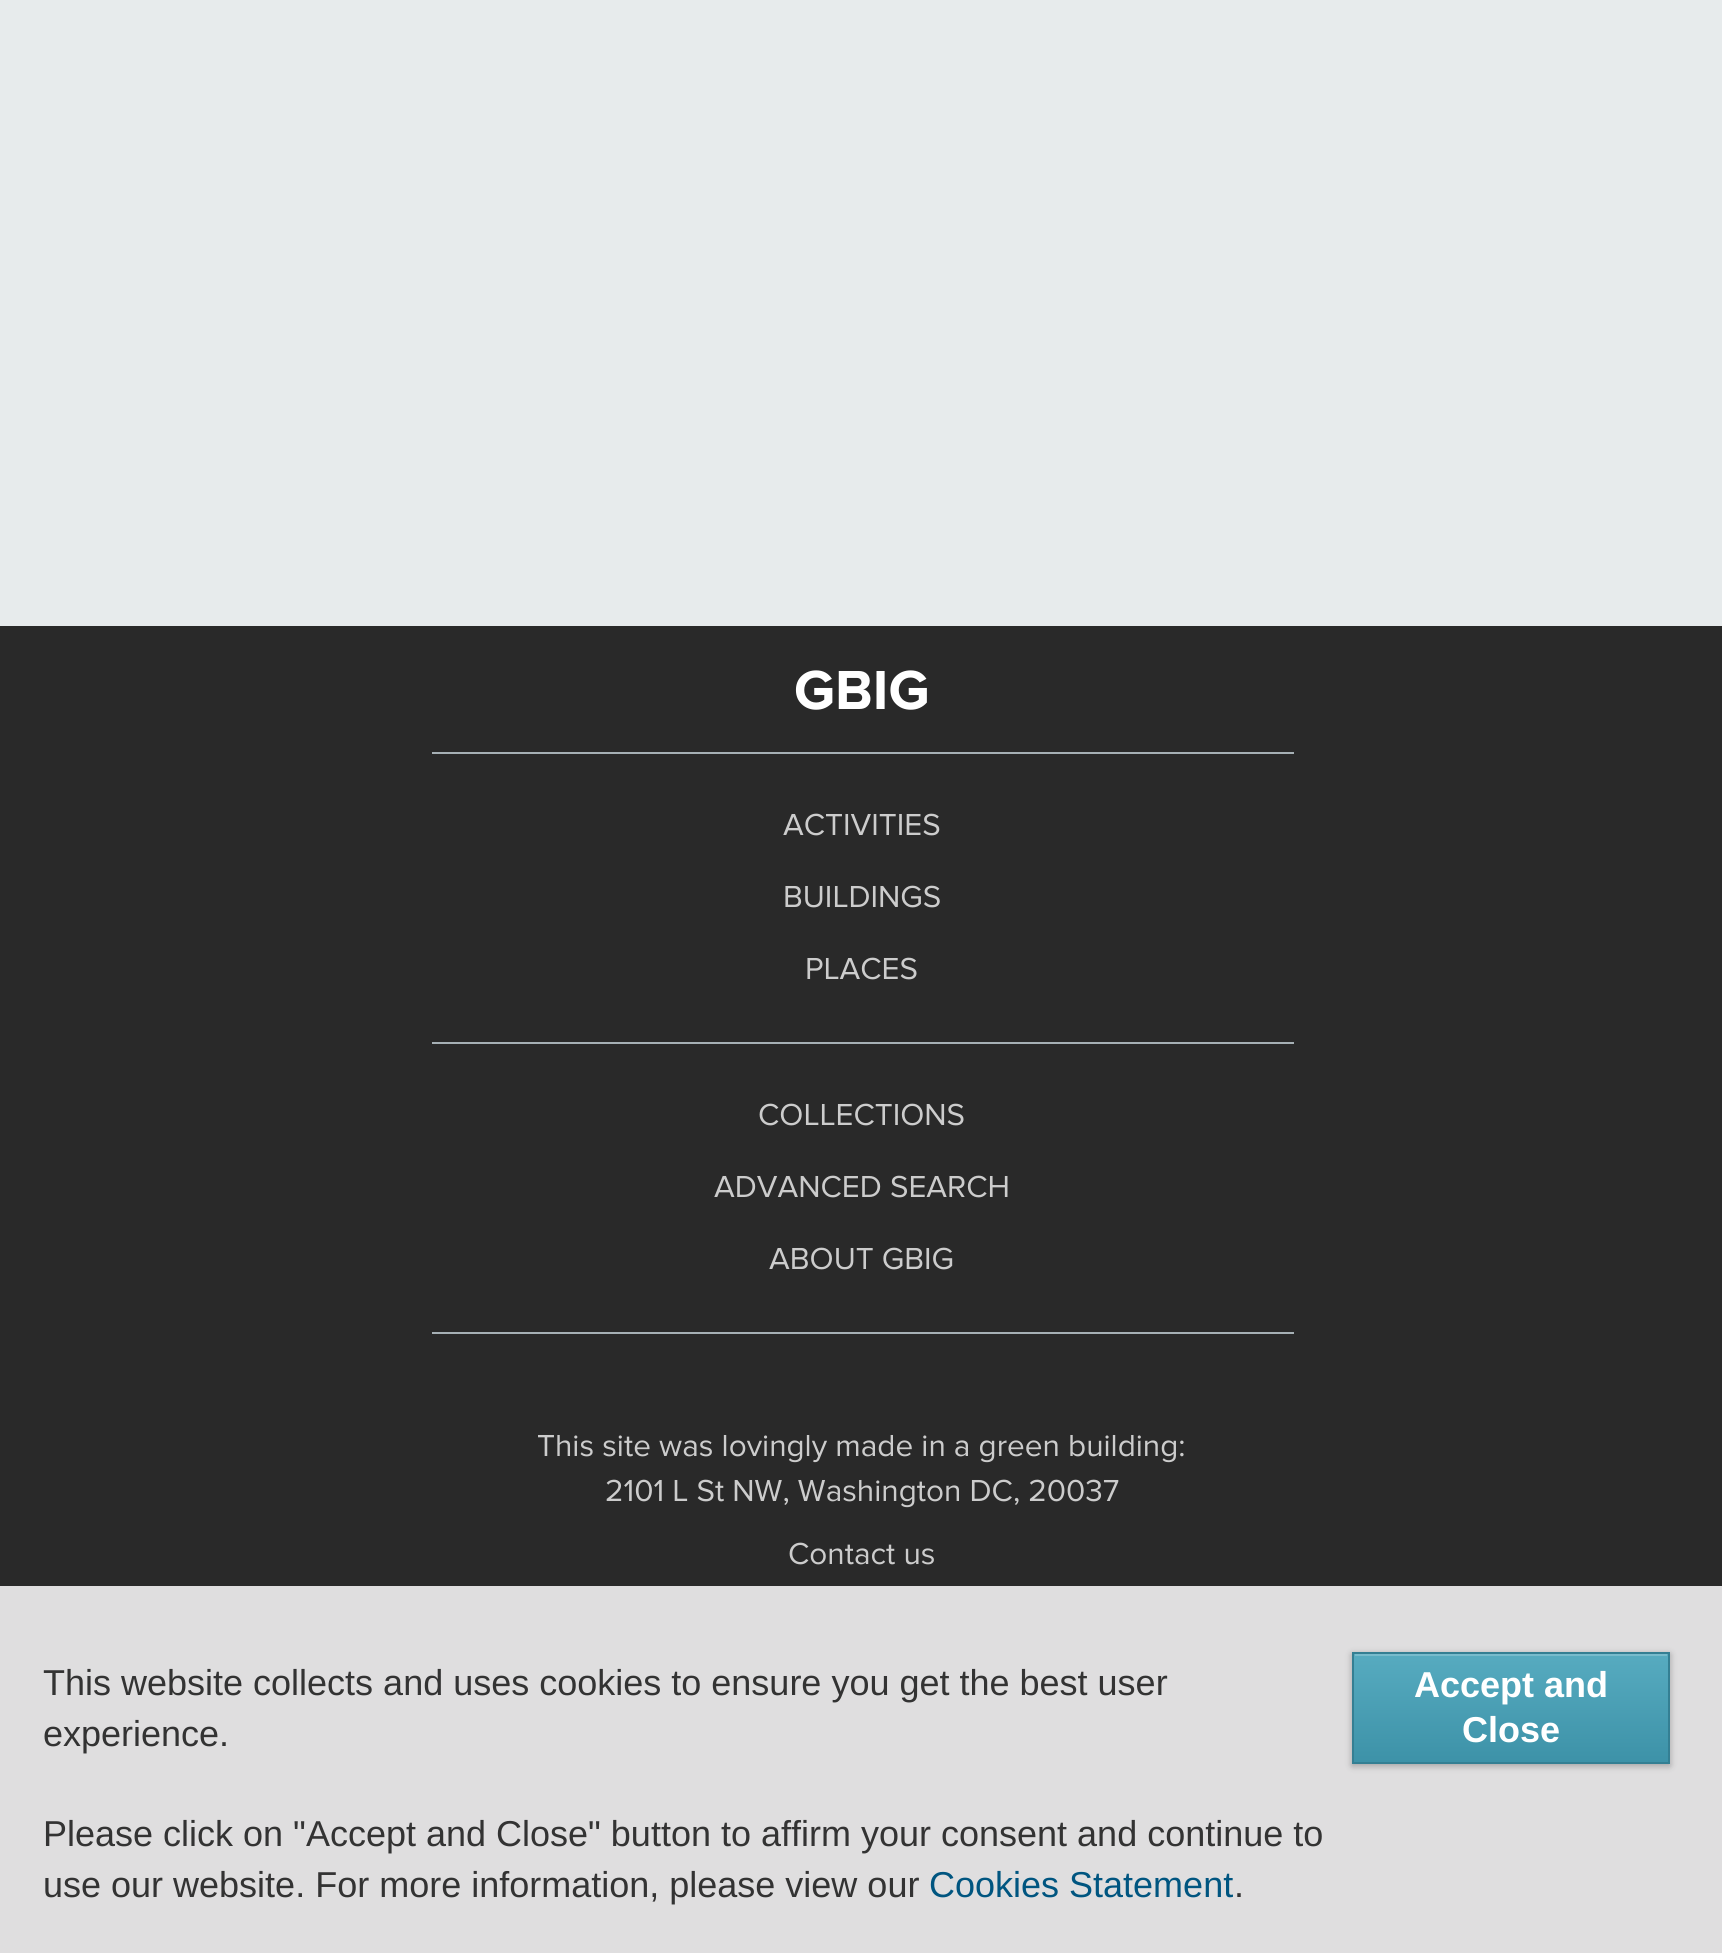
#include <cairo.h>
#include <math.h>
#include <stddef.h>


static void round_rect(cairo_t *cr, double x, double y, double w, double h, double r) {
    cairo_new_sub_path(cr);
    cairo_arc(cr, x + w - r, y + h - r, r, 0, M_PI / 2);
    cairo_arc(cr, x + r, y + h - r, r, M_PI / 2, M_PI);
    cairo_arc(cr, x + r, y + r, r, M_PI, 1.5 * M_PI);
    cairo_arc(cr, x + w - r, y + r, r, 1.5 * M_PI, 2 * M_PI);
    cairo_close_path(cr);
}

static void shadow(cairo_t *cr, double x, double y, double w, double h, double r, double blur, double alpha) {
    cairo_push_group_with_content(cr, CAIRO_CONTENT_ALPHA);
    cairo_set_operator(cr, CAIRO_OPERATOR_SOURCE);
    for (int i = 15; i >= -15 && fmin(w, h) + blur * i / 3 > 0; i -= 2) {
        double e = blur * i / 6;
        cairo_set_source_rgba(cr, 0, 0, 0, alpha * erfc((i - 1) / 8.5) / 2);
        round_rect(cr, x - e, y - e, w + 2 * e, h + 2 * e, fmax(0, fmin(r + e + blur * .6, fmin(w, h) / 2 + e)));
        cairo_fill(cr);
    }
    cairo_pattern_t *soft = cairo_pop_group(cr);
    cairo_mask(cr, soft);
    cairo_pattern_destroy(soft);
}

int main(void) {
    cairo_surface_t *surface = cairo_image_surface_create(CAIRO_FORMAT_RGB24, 1722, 1953);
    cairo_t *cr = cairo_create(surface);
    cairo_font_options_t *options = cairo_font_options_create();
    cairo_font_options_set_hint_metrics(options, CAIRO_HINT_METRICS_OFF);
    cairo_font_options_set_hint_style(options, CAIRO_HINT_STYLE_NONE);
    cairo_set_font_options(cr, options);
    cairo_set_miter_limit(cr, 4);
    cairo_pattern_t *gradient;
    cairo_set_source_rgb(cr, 0.906, 0.918, 0.922);
    cairo_paint(cr);
    cairo_set_source_rgb(cr, 0.161, 0.161, 0.161);
    cairo_rectangle(cr, 0, 626, 1722, 960);
    cairo_fill(cr);
    cairo_select_font_face(cr, "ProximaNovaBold", CAIRO_FONT_SLANT_NORMAL, CAIRO_FONT_WEIGHT_BOLD);
    cairo_set_font_size(cr, 57);
    cairo_set_source_rgb(cr, 1, 1, 1);
    cairo_move_to(cr, 794, 709);
    cairo_show_text(cr, "GBIG");
    cairo_set_source_rgb(cr, 0.651, 0.69, 0.71);
    cairo_rectangle(cr, 432, 752, 862, 2);
    cairo_fill(cr);
    cairo_select_font_face(cr, "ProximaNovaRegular", CAIRO_FONT_SLANT_NORMAL, CAIRO_FONT_WEIGHT_NORMAL);
    cairo_set_font_size(cr, 31.5);
    cairo_set_source_rgb(cr, 0.8, 0.8, 0.8);
    cairo_move_to(cr, 783, 835);
    cairo_show_text(cr, "ACTIVITIES");
    cairo_move_to(cr, 783, 907);
    cairo_show_text(cr, "BUILDINGS");
    cairo_move_to(cr, 805, 979);
    cairo_show_text(cr, "PLACES");
    cairo_set_source_rgb(cr, 0.651, 0.69, 0.71);
    cairo_rectangle(cr, 432, 1042, 862, 2);
    cairo_fill(cr);
    cairo_set_source_rgb(cr, 0.8, 0.8, 0.8);
    cairo_move_to(cr, 758, 1125);
    cairo_show_text(cr, "COLLECTIONS");
    cairo_move_to(cr, 714, 1197);
    cairo_show_text(cr, "ADVANCED SEARCH");
    cairo_move_to(cr, 769, 1269);
    cairo_show_text(cr, "ABOUT GBIG");
    cairo_set_source_rgb(cr, 0.651, 0.69, 0.71);
    cairo_rectangle(cr, 432, 1332, 862, 2);
    cairo_fill(cr);
    cairo_set_source_rgb(cr, 0.8, 0.8, 0.8);
    cairo_move_to(cr, 537, 1456);
    cairo_show_text(cr, "This site was lovingly made in a green building:");
    cairo_move_to(cr, 605, 1501);
    cairo_show_text(cr, "2101 L St NW, Washington DC, 20037");
    cairo_move_to(cr, 788, 1564);
    cairo_show_text(cr, "Contact us");
    cairo_set_source_rgb(cr, 0.875, 0.871, 0.875);
    cairo_rectangle(cr, 0, 1586, 1722, 367);
    cairo_fill(cr);
    cairo_select_font_face(cr, "Liberation Sans", CAIRO_FONT_SLANT_NORMAL, CAIRO_FONT_WEIGHT_NORMAL);
    cairo_set_font_size(cr, 36);
    cairo_set_source_rgb(cr, 0.2, 0.2, 0.2);
    cairo_move_to(cr, 43, 1695);
    cairo_show_text(cr, "This website collects and uses cookies to ensure you get the best user");
    cairo_move_to(cr, 43, 1746);
    cairo_show_text(cr, "experience.");
    cairo_move_to(cr, 43, 1846);
    cairo_show_text(cr, "Please click on \"Accept and Close\" button to affirm your consent and continue to");
    cairo_move_to(cr, 43, 1897);
    cairo_show_text(cr, "use our website. For more information, please view our");
    cairo_set_source_rgb(cr, 0, 0.333, 0.502);
    cairo_move_to(cr, 929, 1897);
    cairo_show_text(cr, "Cookies Statement");
    cairo_set_source_rgb(cr, 0.2, 0.2, 0.2);
    cairo_move_to(cr, 1234, 1897);
    cairo_show_text(cr, ".");
    cairo_set_source_rgb(cr, 0, 0, 0);
    shadow(cr, 1352, 1654, 318, 112, 0, 3.5, 0.28);
    gradient = cairo_pattern_create_linear(1355, 1654, 1355, 1762);
    cairo_pattern_add_color_stop_rgba(gradient, 0, 0.341, 0.671, 0.753, 1);
    cairo_pattern_add_color_stop_rgba(gradient, 1, 0.239, 0.573, 0.659, 1);
    cairo_set_source(cr, gradient);
    cairo_pattern_destroy(gradient);
    cairo_rectangle(cr, 1354, 1654, 314, 108);
    cairo_fill(cr);
    cairo_set_source_rgb(cr, 0.471, 0.733, 0.8);
    cairo_rectangle(cr, 1355, 1654, 312, 2);
    cairo_fill(cr);
    cairo_rectangle(cr, 1353, 1653, 316, 110);
    cairo_set_source_rgb(cr, 0.204, 0.498, 0.576);
    cairo_stroke(cr);
    cairo_select_font_face(cr, "Liberation Sans", CAIRO_FONT_SLANT_NORMAL, CAIRO_FONT_WEIGHT_BOLD);
    cairo_set_source_rgb(cr, 1, 1, 1);
    cairo_move_to(cr, 1414, 1697);
    cairo_show_text(cr, "Accept and");
    cairo_move_to(cr, 1462, 1742);
    cairo_show_text(cr, "Close");
    cairo_surface_write_to_png(surface, "page.png");
    cairo_font_options_destroy(options);
    cairo_destroy(cr);
    cairo_surface_destroy(surface);
    return 0;
}
